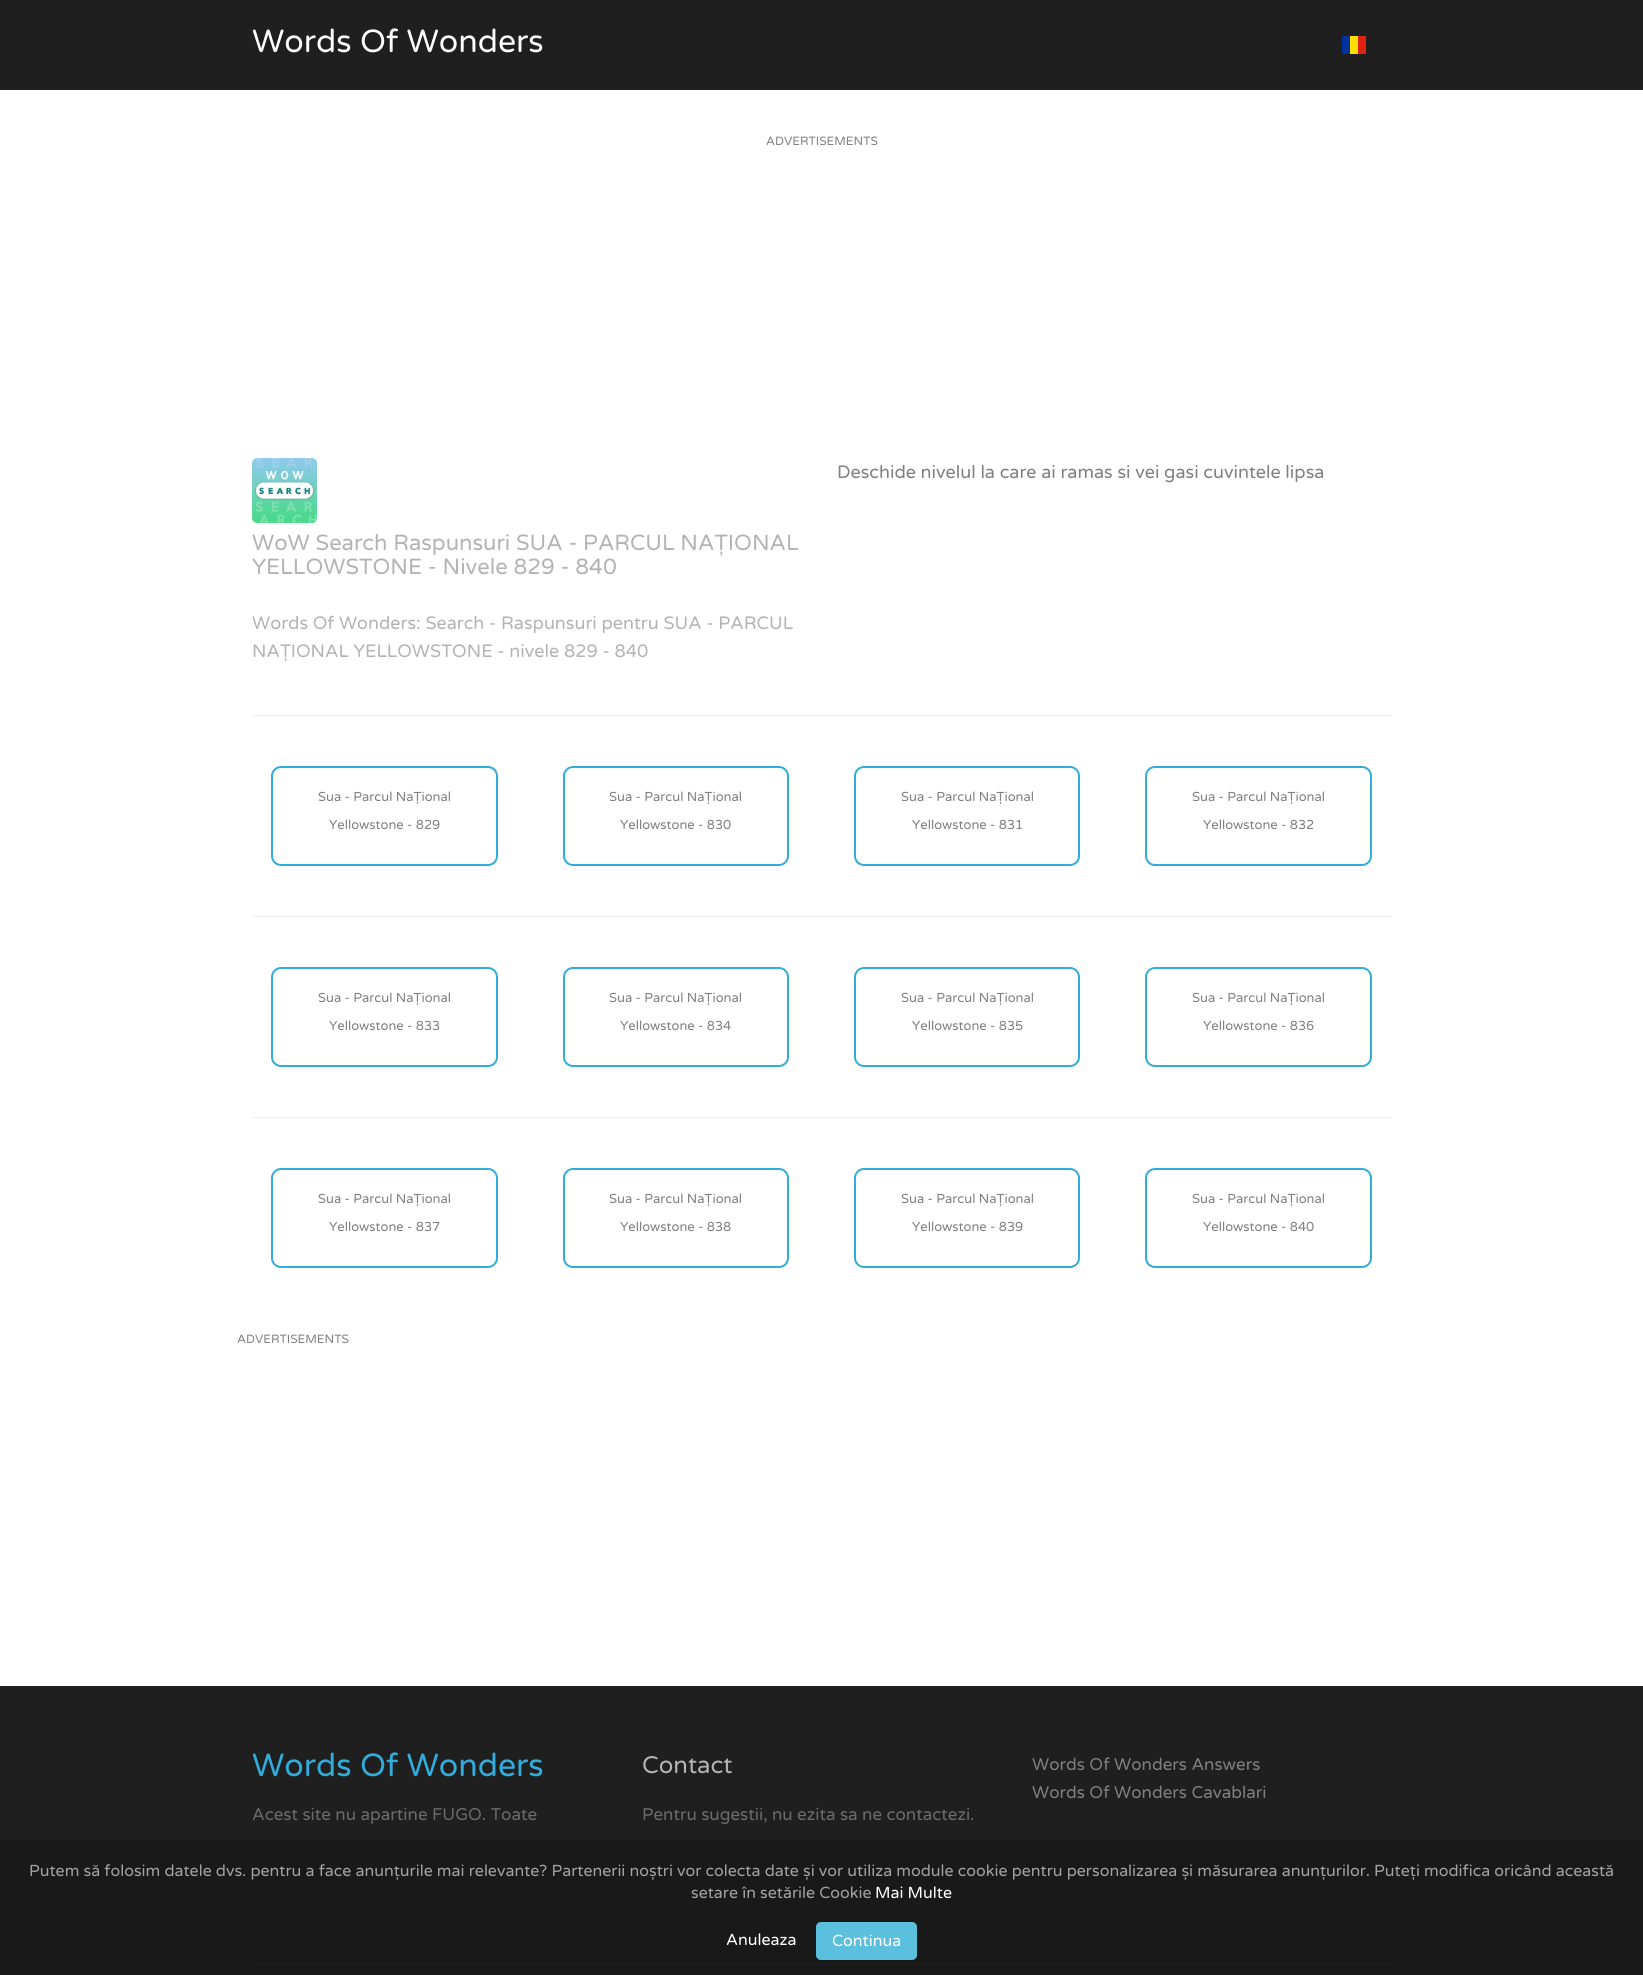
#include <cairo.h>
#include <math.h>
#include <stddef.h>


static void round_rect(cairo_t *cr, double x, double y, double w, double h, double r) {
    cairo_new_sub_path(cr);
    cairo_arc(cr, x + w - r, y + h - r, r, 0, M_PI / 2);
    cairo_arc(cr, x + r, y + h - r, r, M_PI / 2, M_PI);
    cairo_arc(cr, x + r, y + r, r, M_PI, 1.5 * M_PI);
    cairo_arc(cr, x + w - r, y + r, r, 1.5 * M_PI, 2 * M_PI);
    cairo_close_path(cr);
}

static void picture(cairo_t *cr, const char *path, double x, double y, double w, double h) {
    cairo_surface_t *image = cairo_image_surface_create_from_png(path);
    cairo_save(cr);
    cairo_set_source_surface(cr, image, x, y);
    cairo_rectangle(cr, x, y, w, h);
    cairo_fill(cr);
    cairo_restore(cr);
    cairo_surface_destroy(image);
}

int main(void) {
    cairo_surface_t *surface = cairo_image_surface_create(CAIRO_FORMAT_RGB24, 1643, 1975);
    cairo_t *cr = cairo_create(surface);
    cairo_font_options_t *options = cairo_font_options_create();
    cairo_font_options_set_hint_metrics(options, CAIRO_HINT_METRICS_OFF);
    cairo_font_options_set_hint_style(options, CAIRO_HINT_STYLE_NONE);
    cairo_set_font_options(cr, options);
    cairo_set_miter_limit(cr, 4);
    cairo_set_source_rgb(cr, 1, 1, 1);
    cairo_paint(cr);
    cairo_set_source_rgb(cr, 0.122, 0.122, 0.122);
    cairo_rectangle(cr, 0, 0, 1643, 90);
    cairo_fill(cr);
    cairo_select_font_face(cr, "Varela Round", CAIRO_FONT_SLANT_NORMAL, CAIRO_FONT_WEIGHT_NORMAL);
    cairo_set_font_size(cr, 32);
    cairo_set_source_rgb(cr, 1, 1, 1);
    cairo_move_to(cr, 252, 52);
    cairo_show_text(cr, "Words Of Wonders");
    cairo_set_source_rgb(cr, 0, 0.192, 0.612);
    cairo_rectangle(cr, 1342, 36, 8, 18);
    cairo_fill(cr);
    cairo_set_source_rgb(cr, 1, 0.871, 0);
    cairo_rectangle(cr, 1350, 36, 8, 18);
    cairo_fill(cr);
    cairo_set_source_rgb(cr, 0.871, 0.129, 0.063);
    cairo_rectangle(cr, 1358, 36, 8, 18);
    cairo_fill(cr);
    cairo_set_font_size(cr, 12);
    cairo_set_source_rgb(cr, 0.502, 0.502, 0.502);
    cairo_move_to(cr, 766, 145);
    cairo_show_text(cr, "ADVERTISEMENTS");
    cairo_set_font_size(cr, 18);
    cairo_move_to(cr, 837, 478);
    cairo_show_text(cr, "Deschide nivelul la care ai ramas si vei gasi cuvintele lipsa");
    picture(cr, "img1.png", 252, 458, 65, 65);
    cairo_set_font_size(cr, 22);
    cairo_set_source_rgb(cr, 0.702, 0.702, 0.702);
    cairo_move_to(cr, 252, 550);
    cairo_show_text(cr, "WoW Search Raspunsuri SUA - PARCUL NAȚIONAL");
    cairo_move_to(cr, 252, 574);
    cairo_show_text(cr, "YELLOWSTONE - Nivele 829 - 840");
    cairo_set_font_size(cr, 18);
    cairo_move_to(cr, 252, 629);
    cairo_show_text(cr, "Words Of Wonders: Search - Raspunsuri pentru SUA - PARCUL");
    cairo_move_to(cr, 252, 657);
    cairo_show_text(cr, "NAȚIONAL YELLOWSTONE - nivele 829 - 840");
    cairo_set_source_rgb(cr, 0.933, 0.933, 0.933);
    cairo_rectangle(cr, 252, 715, 1140, 1);
    cairo_fill(cr);
    round_rect(cr, 272, 767, 225, 98, 9);
    cairo_set_source_rgb(cr, 0.192, 0.675, 0.859);
    cairo_stroke(cr);
    cairo_set_font_size(cr, 13);
    cairo_set_source_rgb(cr, 0.502, 0.502, 0.502);
    cairo_move_to(cr, 318, 801);
    cairo_show_text(cr, "Sua - Parcul NaȚional");
    cairo_move_to(cr, 329, 829);
    cairo_show_text(cr, "Yellowstone - 829");
    round_rect(cr, 564, 767, 224, 98, 9);
    cairo_set_source_rgb(cr, 0.192, 0.675, 0.859);
    cairo_stroke(cr);
    cairo_set_source_rgb(cr, 0.502, 0.502, 0.502);
    cairo_move_to(cr, 609, 801);
    cairo_show_text(cr, "Sua - Parcul NaȚional");
    cairo_move_to(cr, 620, 829);
    cairo_show_text(cr, "Yellowstone - 830");
    round_rect(cr, 855, 767, 224, 98, 9);
    cairo_set_source_rgb(cr, 0.192, 0.675, 0.859);
    cairo_stroke(cr);
    cairo_set_source_rgb(cr, 0.502, 0.502, 0.502);
    cairo_move_to(cr, 901, 801);
    cairo_show_text(cr, "Sua - Parcul NaȚional");
    cairo_move_to(cr, 912, 829);
    cairo_show_text(cr, "Yellowstone - 831");
    round_rect(cr, 1146, 767, 225, 98, 9);
    cairo_set_source_rgb(cr, 0.192, 0.675, 0.859);
    cairo_stroke(cr);
    cairo_set_source_rgb(cr, 0.502, 0.502, 0.502);
    cairo_move_to(cr, 1192, 801);
    cairo_show_text(cr, "Sua - Parcul NaȚional");
    cairo_move_to(cr, 1203, 829);
    cairo_show_text(cr, "Yellowstone - 832");
    cairo_set_source_rgb(cr, 0.933, 0.933, 0.933);
    cairo_rectangle(cr, 252, 916, 1140, 1);
    cairo_fill(cr);
    round_rect(cr, 272, 968, 225, 98, 9);
    cairo_set_source_rgb(cr, 0.192, 0.675, 0.859);
    cairo_stroke(cr);
    cairo_set_source_rgb(cr, 0.502, 0.502, 0.502);
    cairo_move_to(cr, 318, 1002);
    cairo_show_text(cr, "Sua - Parcul NaȚional");
    cairo_move_to(cr, 329, 1030);
    cairo_show_text(cr, "Yellowstone - 833");
    round_rect(cr, 564, 968, 224, 98, 9);
    cairo_set_source_rgb(cr, 0.192, 0.675, 0.859);
    cairo_stroke(cr);
    cairo_set_source_rgb(cr, 0.502, 0.502, 0.502);
    cairo_move_to(cr, 609, 1002);
    cairo_show_text(cr, "Sua - Parcul NaȚional");
    cairo_move_to(cr, 620, 1030);
    cairo_show_text(cr, "Yellowstone - 834");
    round_rect(cr, 855, 968, 224, 98, 9);
    cairo_set_source_rgb(cr, 0.192, 0.675, 0.859);
    cairo_stroke(cr);
    cairo_set_source_rgb(cr, 0.502, 0.502, 0.502);
    cairo_move_to(cr, 901, 1002);
    cairo_show_text(cr, "Sua - Parcul NaȚional");
    cairo_move_to(cr, 912, 1030);
    cairo_show_text(cr, "Yellowstone - 835");
    round_rect(cr, 1146, 968, 225, 98, 9);
    cairo_set_source_rgb(cr, 0.192, 0.675, 0.859);
    cairo_stroke(cr);
    cairo_set_source_rgb(cr, 0.502, 0.502, 0.502);
    cairo_move_to(cr, 1192, 1002);
    cairo_show_text(cr, "Sua - Parcul NaȚional");
    cairo_move_to(cr, 1203, 1030);
    cairo_show_text(cr, "Yellowstone - 836");
    cairo_set_source_rgb(cr, 0.933, 0.933, 0.933);
    cairo_rectangle(cr, 252, 1117, 1140, 1);
    cairo_fill(cr);
    round_rect(cr, 272, 1169, 225, 98, 9);
    cairo_set_source_rgb(cr, 0.192, 0.675, 0.859);
    cairo_stroke(cr);
    cairo_set_source_rgb(cr, 0.502, 0.502, 0.502);
    cairo_move_to(cr, 318, 1203);
    cairo_show_text(cr, "Sua - Parcul NaȚional");
    cairo_move_to(cr, 329, 1231);
    cairo_show_text(cr, "Yellowstone - 837");
    round_rect(cr, 564, 1169, 224, 98, 9);
    cairo_set_source_rgb(cr, 0.192, 0.675, 0.859);
    cairo_stroke(cr);
    cairo_set_source_rgb(cr, 0.502, 0.502, 0.502);
    cairo_move_to(cr, 609, 1203);
    cairo_show_text(cr, "Sua - Parcul NaȚional");
    cairo_move_to(cr, 620, 1231);
    cairo_show_text(cr, "Yellowstone - 838");
    round_rect(cr, 855, 1169, 224, 98, 9);
    cairo_set_source_rgb(cr, 0.192, 0.675, 0.859);
    cairo_stroke(cr);
    cairo_set_source_rgb(cr, 0.502, 0.502, 0.502);
    cairo_move_to(cr, 901, 1203);
    cairo_show_text(cr, "Sua - Parcul NaȚional");
    cairo_move_to(cr, 912, 1231);
    cairo_show_text(cr, "Yellowstone - 839");
    round_rect(cr, 1146, 1169, 225, 98, 9);
    cairo_set_source_rgb(cr, 0.192, 0.675, 0.859);
    cairo_stroke(cr);
    cairo_set_source_rgb(cr, 0.502, 0.502, 0.502);
    cairo_move_to(cr, 1192, 1203);
    cairo_show_text(cr, "Sua - Parcul NaȚional");
    cairo_move_to(cr, 1203, 1231);
    cairo_show_text(cr, "Yellowstone - 840");
    cairo_set_font_size(cr, 12);
    cairo_move_to(cr, 237, 1343);
    cairo_show_text(cr, "ADVERTISEMENTS");
    cairo_set_source_rgb(cr, 0.122, 0.122, 0.122);
    cairo_rectangle(cr, 0, 1686, 1643, 289);
    cairo_fill(cr);
    cairo_set_font_size(cr, 32);
    cairo_set_source_rgb(cr, 0.192, 0.675, 0.859);
    cairo_move_to(cr, 252, 1776);
    cairo_show_text(cr, "Words Of Wonders");
    cairo_set_font_size(cr, 17);
    cairo_set_source_rgb(cr, 0.42, 0.42, 0.42);
    cairo_move_to(cr, 252, 1820);
    cairo_show_text(cr, "Acest site nu apartine FUGO. Toate");
    cairo_set_font_size(cr, 24);
    cairo_set_source_rgb(cr, 0.702, 0.702, 0.702);
    cairo_move_to(cr, 642, 1773);
    cairo_show_text(cr, "Contact");
    cairo_set_font_size(cr, 17);
    cairo_set_source_rgb(cr, 0.42, 0.42, 0.42);
    cairo_move_to(cr, 642, 1820);
    cairo_show_text(cr, "Pentru sugestii, nu ezita sa ne contactezi.");
    cairo_set_source_rgb(cr, 0.502, 0.502, 0.502);
    cairo_move_to(cr, 1032, 1770);
    cairo_show_text(cr, "Words Of Wonders Answers");
    cairo_move_to(cr, 1032, 1798);
    cairo_show_text(cr, "Words Of Wonders Cavablari");
    cairo_set_source_rgb(cr, 0.2, 0.2, 0.2);
    cairo_rectangle(cr, 252, 1963, 1140, 1);
    cairo_fill(cr);
    cairo_set_source_rgba(cr, 0.098, 0.098, 0.098, 0.9);
    cairo_rectangle(cr, 0, 1840, 1643, 135);
    cairo_fill(cr);
    cairo_set_font_size(cr, 16);
    cairo_set_source_rgb(cr, 0.635, 0.635, 0.635);
    cairo_move_to(cr, 29, 1876);
    cairo_show_text(cr, "Putem să folosim datele dvs. pentru a face anunțurile mai relevante? Partenerii noștri vor colecta date și vor utiliza module cookie pentru personalizarea și măsurarea anunțurilor. Puteți modifica oricând această");
    cairo_move_to(cr, 691, 1898);
    cairo_show_text(cr, "setare în setările Cookie");
    cairo_set_source_rgb(cr, 1, 1, 1);
    cairo_move_to(cr, 875, 1898);
    cairo_show_text(cr, "Mai Multe");
    cairo_move_to(cr, 726, 1945);
    cairo_show_text(cr, "Anuleaza");
    cairo_set_source_rgb(cr, 0.357, 0.753, 0.871);
    round_rect(cr, 816, 1922, 101, 38, 5);
    cairo_fill(cr);
    cairo_set_source_rgb(cr, 1, 1, 1);
    cairo_move_to(cr, 832, 1946);
    cairo_show_text(cr, "Continua");
    cairo_surface_write_to_png(surface, "page.png");
    cairo_font_options_destroy(options);
    cairo_destroy(cr);
    cairo_surface_destroy(surface);
    return 0;
}
